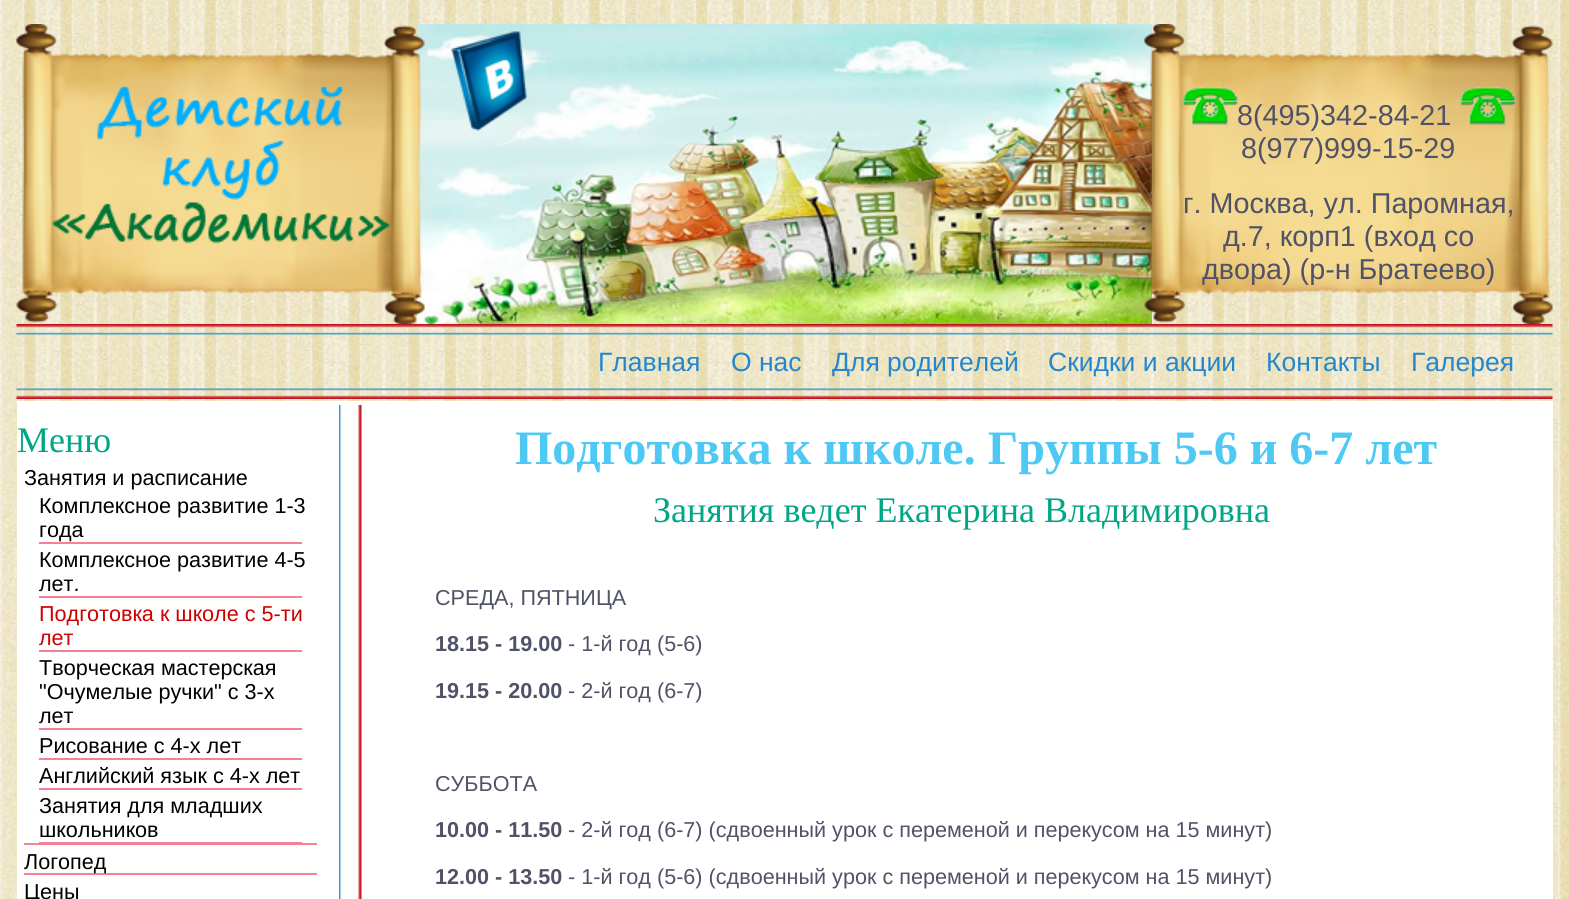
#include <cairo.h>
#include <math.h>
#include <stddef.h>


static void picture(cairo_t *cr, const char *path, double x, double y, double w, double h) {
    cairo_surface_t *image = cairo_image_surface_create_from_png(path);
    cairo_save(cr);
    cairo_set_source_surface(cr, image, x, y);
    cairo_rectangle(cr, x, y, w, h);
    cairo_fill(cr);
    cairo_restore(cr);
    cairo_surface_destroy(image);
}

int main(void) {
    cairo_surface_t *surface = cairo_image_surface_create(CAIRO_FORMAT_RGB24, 1569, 899);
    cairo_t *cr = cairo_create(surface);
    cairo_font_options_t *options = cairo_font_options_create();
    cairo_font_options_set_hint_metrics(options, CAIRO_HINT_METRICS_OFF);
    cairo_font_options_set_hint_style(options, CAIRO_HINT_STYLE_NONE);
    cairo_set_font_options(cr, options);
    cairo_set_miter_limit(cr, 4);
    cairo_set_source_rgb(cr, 1, 1, 1);
    cairo_paint(cr);
    picture(cr, "img1.png", 0, 0, 1569, 899);
    picture(cr, "img2.png", 417, 24, 735, 300);
    picture(cr, "img3.png", 16, 24, 409, 300);
    picture(cr, "img4.png", 451, 31, 76, 100);
    picture(cr, "img5.png", 1144, 24, 409, 300);
    picture(cr, "img6.png", 1182, 87, 56, 38);
    cairo_select_font_face(cr, "Liberation Sans", CAIRO_FONT_SLANT_NORMAL, CAIRO_FONT_WEIGHT_NORMAL);
    cairo_set_font_size(cr, 28.75);
    cairo_set_source_rgb(cr, 0.314, 0.325, 0.404);
    cairo_move_to(cr, 1237, 125);
    cairo_show_text(cr, "8(495)342-84-21");
    picture(cr, "img7.png", 1459, 87, 56, 38);
    cairo_move_to(cr, 1241, 158);
    cairo_show_text(cr, "8(977)999-15-29");
    cairo_move_to(cr, 1183, 213);
    cairo_show_text(cr, "г. Москва, ул. Паромная,");
    cairo_move_to(cr, 1223, 246);
    cairo_show_text(cr, "д.7, корп1 (вход со");
    cairo_move_to(cr, 1202, 279);
    cairo_show_text(cr, "двора) (р-н Братеево)");
    picture(cr, "img8.png", 16, 324, 1537, 75);
    cairo_set_font_size(cr, 26.5);
    cairo_set_source_rgb(cr, 0.137, 0.529, 0.804);
    cairo_move_to(cr, 598, 371);
    cairo_show_text(cr, "Главная");
    cairo_move_to(cr, 731, 371);
    cairo_show_text(cr, "О нас");
    cairo_move_to(cr, 832, 371);
    cairo_show_text(cr, "Для родителей");
    cairo_move_to(cr, 1048, 371);
    cairo_show_text(cr, "Скидки и акции");
    cairo_move_to(cr, 1266, 371);
    cairo_show_text(cr, "Контакты");
    cairo_move_to(cr, 1411, 371);
    cairo_show_text(cr, "Галерея");
    cairo_set_source_rgb(cr, 1, 1, 1);
    cairo_rectangle(cr, 17, 401, 1536, 498);
    cairo_fill(cr);
    picture(cr, "img9.png", 339, 405, 23, 494);
    cairo_select_font_face(cr, "Liberation Serif", CAIRO_FONT_SLANT_NORMAL, CAIRO_FONT_WEIGHT_NORMAL);
    cairo_set_font_size(cr, 36);
    cairo_set_source_rgb(cr, 0, 0.651, 0.522);
    cairo_move_to(cr, 17, 452);
    cairo_show_text(cr, "Меню");
    cairo_set_source_rgb(cr, 0.957, 0.506, 0.584);
    cairo_rectangle(cr, 24, 843, 293, 2);
    cairo_fill(cr);
    cairo_select_font_face(cr, "Liberation Sans", CAIRO_FONT_SLANT_NORMAL, CAIRO_FONT_WEIGHT_NORMAL);
    cairo_set_font_size(cr, 21.6);
    cairo_set_source_rgb(cr, 0, 0, 0);
    cairo_move_to(cr, 24, 485);
    cairo_show_text(cr, "Занятия и расписание");
    cairo_set_source_rgb(cr, 0.957, 0.506, 0.584);
    cairo_rectangle(cr, 39, 542, 263, 2);
    cairo_fill(cr);
    cairo_set_source_rgb(cr, 0, 0, 0);
    cairo_move_to(cr, 39, 513);
    cairo_show_text(cr, "Комплексное развитие 1-3");
    cairo_move_to(cr, 39, 537);
    cairo_show_text(cr, "года");
    cairo_set_source_rgb(cr, 0.957, 0.506, 0.584);
    cairo_rectangle(cr, 39, 596, 263, 2);
    cairo_fill(cr);
    cairo_set_source_rgb(cr, 0, 0, 0);
    cairo_move_to(cr, 39, 567);
    cairo_show_text(cr, "Комплексное развитие 4-5");
    cairo_move_to(cr, 39, 591);
    cairo_show_text(cr, "лет.");
    cairo_set_source_rgb(cr, 0.957, 0.506, 0.584);
    cairo_rectangle(cr, 39, 650, 263, 2);
    cairo_fill(cr);
    cairo_set_source_rgb(cr, 0.808, 0, 0);
    cairo_move_to(cr, 39, 621);
    cairo_show_text(cr, "Подготовка к школе с 5-ти");
    cairo_move_to(cr, 39, 645);
    cairo_show_text(cr, "лет");
    cairo_set_source_rgb(cr, 0.957, 0.506, 0.584);
    cairo_rectangle(cr, 39, 728, 263, 2);
    cairo_fill(cr);
    cairo_set_source_rgb(cr, 0, 0, 0);
    cairo_move_to(cr, 39, 675);
    cairo_show_text(cr, "Творческая мастерская");
    cairo_move_to(cr, 39, 699);
    cairo_show_text(cr, "\"Очумелые ручки\" с 3-х");
    cairo_move_to(cr, 39, 723);
    cairo_show_text(cr, "лет");
    cairo_set_source_rgb(cr, 0.957, 0.506, 0.584);
    cairo_rectangle(cr, 39, 758, 263, 2);
    cairo_fill(cr);
    cairo_set_source_rgb(cr, 0, 0, 0);
    cairo_move_to(cr, 39, 753);
    cairo_show_text(cr, "Рисование с 4-х лет");
    cairo_set_source_rgb(cr, 0.957, 0.506, 0.584);
    cairo_rectangle(cr, 39, 788, 263, 2);
    cairo_fill(cr);
    cairo_set_source_rgb(cr, 0, 0, 0);
    cairo_move_to(cr, 39, 783);
    cairo_show_text(cr, "Английский язык с 4-х лет");
    cairo_set_source_rgb(cr, 0.957, 0.506, 0.584);
    cairo_rectangle(cr, 39, 842, 263, 1);
    cairo_fill(cr);
    cairo_set_source_rgb(cr, 0, 0, 0);
    cairo_move_to(cr, 39, 813);
    cairo_show_text(cr, "Занятия для младших");
    cairo_move_to(cr, 39, 837);
    cairo_show_text(cr, "школьников");
    cairo_set_source_rgb(cr, 0.957, 0.506, 0.584);
    cairo_rectangle(cr, 24, 873, 293, 2);
    cairo_fill(cr);
    cairo_set_source_rgb(cr, 0, 0, 0);
    cairo_move_to(cr, 24, 869);
    cairo_show_text(cr, "Логопед");
    cairo_move_to(cr, 24, 899);
    cairo_show_text(cr, "Цены");
    cairo_select_font_face(cr, "Liberation Serif", CAIRO_FONT_SLANT_NORMAL, CAIRO_FONT_WEIGHT_BOLD);
    cairo_set_font_size(cr, 48);
    cairo_set_source_rgb(cr, 0.302, 0.788, 0.957);
    cairo_move_to(cr, 515, 464);
    cairo_show_text(cr, "Подготовка к школе. Группы 5-6 и 6-7 лет");
    cairo_select_font_face(cr, "Liberation Serif", CAIRO_FONT_SLANT_NORMAL, CAIRO_FONT_WEIGHT_NORMAL);
    cairo_set_font_size(cr, 36);
    cairo_set_source_rgb(cr, 0, 0.651, 0.522);
    cairo_move_to(cr, 653, 522);
    cairo_show_text(cr, "Занятия ведет Екатерина Владимировна");
    cairo_select_font_face(cr, "Liberation Sans", CAIRO_FONT_SLANT_NORMAL, CAIRO_FONT_WEIGHT_NORMAL);
    cairo_set_font_size(cr, 21.6);
    cairo_set_source_rgb(cr, 0.314, 0.325, 0.404);
    cairo_move_to(cr, 435, 605);
    cairo_show_text(cr, "СРЕДА, ПЯТНИЦА");
    cairo_select_font_face(cr, "Liberation Sans", CAIRO_FONT_SLANT_NORMAL, CAIRO_FONT_WEIGHT_BOLD);
    cairo_move_to(cr, 435, 651);
    cairo_show_text(cr, "18.15 - 19.00");
    cairo_select_font_face(cr, "Liberation Sans", CAIRO_FONT_SLANT_NORMAL, CAIRO_FONT_WEIGHT_NORMAL);
    cairo_move_to(cr, 568, 651);
    cairo_show_text(cr, "- 1-й год (5-6)");
    cairo_select_font_face(cr, "Liberation Sans", CAIRO_FONT_SLANT_NORMAL, CAIRO_FONT_WEIGHT_BOLD);
    cairo_move_to(cr, 435, 698);
    cairo_show_text(cr, "19.15 - 20.00");
    cairo_select_font_face(cr, "Liberation Sans", CAIRO_FONT_SLANT_NORMAL, CAIRO_FONT_WEIGHT_NORMAL);
    cairo_move_to(cr, 568, 698);
    cairo_show_text(cr, "- 2-й год (6-7)");
    cairo_move_to(cr, 435, 791);
    cairo_show_text(cr, "СУББОТА");
    cairo_select_font_face(cr, "Liberation Sans", CAIRO_FONT_SLANT_NORMAL, CAIRO_FONT_WEIGHT_BOLD);
    cairo_move_to(cr, 435, 837);
    cairo_show_text(cr, "10.00 - 11.50");
    cairo_select_font_face(cr, "Liberation Sans", CAIRO_FONT_SLANT_NORMAL, CAIRO_FONT_WEIGHT_NORMAL);
    cairo_move_to(cr, 568, 837);
    cairo_show_text(cr, "- 2-й год (6-7) (сдвоенный урок с переменой и перекусом на 15 минут)");
    cairo_select_font_face(cr, "Liberation Sans", CAIRO_FONT_SLANT_NORMAL, CAIRO_FONT_WEIGHT_BOLD);
    cairo_move_to(cr, 435, 884);
    cairo_show_text(cr, "12.00 - 13.50");
    cairo_select_font_face(cr, "Liberation Sans", CAIRO_FONT_SLANT_NORMAL, CAIRO_FONT_WEIGHT_NORMAL);
    cairo_move_to(cr, 568, 884);
    cairo_show_text(cr, "- 1-й год (5-6) (сдвоенный урок с переменой и перекусом на 15 минут)");
    cairo_surface_write_to_png(surface, "page.png");
    cairo_font_options_destroy(options);
    cairo_destroy(cr);
    cairo_surface_destroy(surface);
    return 0;
}
